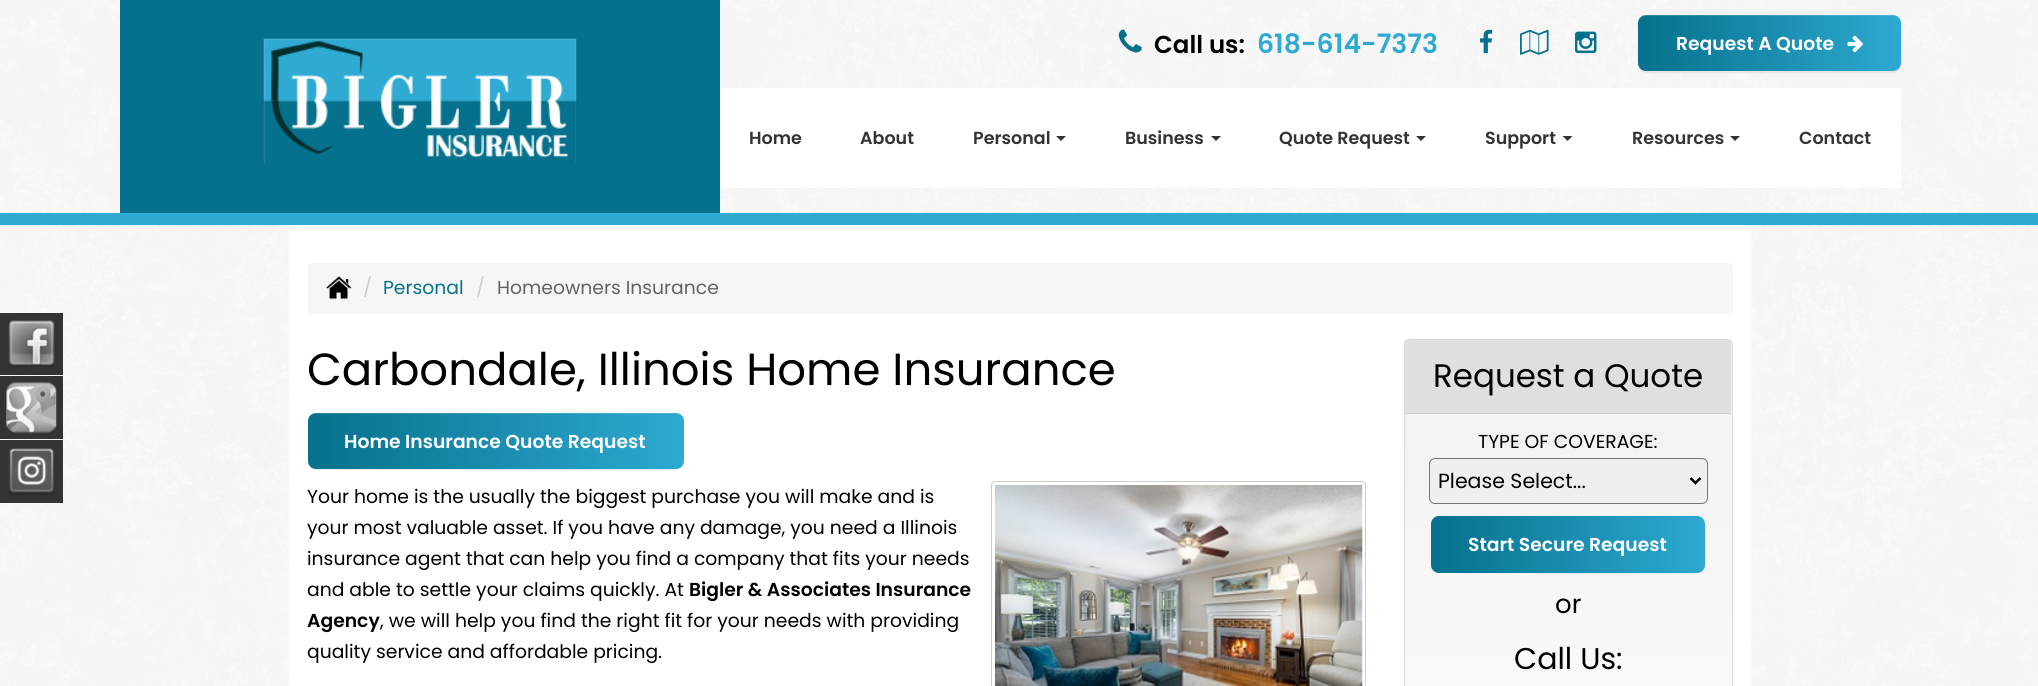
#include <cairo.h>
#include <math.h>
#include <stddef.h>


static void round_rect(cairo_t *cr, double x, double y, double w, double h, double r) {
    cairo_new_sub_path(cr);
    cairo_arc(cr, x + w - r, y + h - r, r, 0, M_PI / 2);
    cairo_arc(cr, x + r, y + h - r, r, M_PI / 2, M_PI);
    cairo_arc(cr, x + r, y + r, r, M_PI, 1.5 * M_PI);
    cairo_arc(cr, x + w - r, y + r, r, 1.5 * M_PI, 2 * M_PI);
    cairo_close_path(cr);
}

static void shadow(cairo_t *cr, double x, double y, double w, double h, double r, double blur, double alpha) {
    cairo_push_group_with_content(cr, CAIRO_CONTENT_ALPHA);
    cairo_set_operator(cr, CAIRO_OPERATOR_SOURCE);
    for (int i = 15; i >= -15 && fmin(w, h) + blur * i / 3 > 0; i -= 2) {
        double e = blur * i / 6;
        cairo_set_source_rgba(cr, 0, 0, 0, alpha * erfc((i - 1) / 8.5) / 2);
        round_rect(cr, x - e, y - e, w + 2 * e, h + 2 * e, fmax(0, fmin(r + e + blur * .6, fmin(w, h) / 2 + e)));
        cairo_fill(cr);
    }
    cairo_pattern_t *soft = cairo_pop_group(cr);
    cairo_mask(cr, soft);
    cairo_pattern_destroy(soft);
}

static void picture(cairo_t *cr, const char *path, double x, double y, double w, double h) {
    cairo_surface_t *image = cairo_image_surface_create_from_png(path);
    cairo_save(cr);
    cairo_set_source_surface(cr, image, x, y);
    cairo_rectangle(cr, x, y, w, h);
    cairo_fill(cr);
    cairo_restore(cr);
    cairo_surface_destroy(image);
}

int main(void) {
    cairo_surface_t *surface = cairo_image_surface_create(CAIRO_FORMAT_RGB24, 2038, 686);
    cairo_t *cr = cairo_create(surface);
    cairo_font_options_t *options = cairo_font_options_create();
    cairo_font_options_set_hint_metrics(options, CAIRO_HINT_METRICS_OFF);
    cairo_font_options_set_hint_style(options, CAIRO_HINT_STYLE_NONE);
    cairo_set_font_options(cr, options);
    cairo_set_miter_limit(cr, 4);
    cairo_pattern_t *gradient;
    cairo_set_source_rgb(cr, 1, 1, 1);
    cairo_paint(cr);
    picture(cr, "img1.png", 0, 0, 2038, 686);
    cairo_set_source_rgb(cr, 0.02, 0.443, 0.549);
    cairo_rectangle(cr, 120, 0, 600, 213);
    cairo_fill(cr);
    picture(cr, "img2.png", 263, 38, 314, 126);
    picture(cr, "img3.png", 1118, 29, 24, 24);
    cairo_select_font_face(cr, "Poppins SemiBold", CAIRO_FONT_SLANT_NORMAL, CAIRO_FONT_WEIGHT_NORMAL);
    cairo_set_font_size(cr, 24.5);
    cairo_set_source_rgb(cr, 0, 0, 0);
    cairo_move_to(cr, 1154, 53);
    cairo_show_text(cr, "Call us:");
    cairo_set_font_size(cr, 26.75);
    cairo_set_source_rgb(cr, 0.184, 0.667, 0.827);
    cairo_move_to(cr, 1257, 53);
    cairo_show_text(cr, "618-614-7373");
    picture(cr, "img4.png", 1480, 29, 13, 25);
    picture(cr, "img5.png", 1520, 29, 29, 26);
    picture(cr, "img6.png", 1575, 31, 22, 23);
    cairo_set_source_rgb(cr, 0, 0, 0);
    shadow(cr, 1638, 16, 263, 57, 8, 0.5, 0.07);
    gradient = cairo_pattern_create_linear(1638, 43, 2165, 43);
    cairo_pattern_add_color_stop_rgba(gradient, 0, 0.02, 0.443, 0.549, 1);
    cairo_pattern_add_color_stop_rgba(gradient, 0.51, 0.184, 0.667, 0.827, 1);
    cairo_pattern_add_color_stop_rgba(gradient, 1, 0.02, 0.443, 0.549, 1);
    cairo_set_source(cr, gradient);
    cairo_pattern_destroy(gradient);
    round_rect(cr, 1638, 15, 263, 56, 8);
    cairo_fill(cr);
    cairo_set_source_rgba(cr, 1, 1, 1, 0.15);
    cairo_new_path(cr);
    cairo_move_to(cr, 1645, 16);
    cairo_line_to(cr, 1894, 16);
    cairo_curve_to(cr, 1898, 16, 1901, 20, 1901, 24);
    cairo_curve_to(cr, 1901, 20, 1899, 16, 1895, 15);
    cairo_line_to(cr, 1644, 15);
    cairo_curve_to(cr, 1640, 16, 1638, 20, 1638, 24);
    cairo_curve_to(cr, 1638, 20, 1641, 16, 1645, 16);
    cairo_close_path(cr);
    cairo_fill(cr);
    cairo_set_font_size(cr, 18.75);
    cairo_set_source_rgb(cr, 1, 1, 1);
    cairo_move_to(cr, 1676, 50);
    cairo_show_text(cr, "Request A Quote");
    picture(cr, "img7.png", 1847, 35, 16, 18);
    cairo_rectangle(cr, 720, 88, 1181, 100);
    cairo_fill(cr);
    cairo_set_font_size(cr, 17.5);
    cairo_set_source_rgb(cr, 0.2, 0.2, 0.2);
    cairo_move_to(cr, 749, 144);
    cairo_show_text(cr, "Home");
    cairo_move_to(cr, 860, 144);
    cairo_show_text(cr, "About");
    cairo_move_to(cr, 973, 144);
    cairo_show_text(cr, "Personal");
    cairo_new_path(cr);
    cairo_move_to(cr, 1056, 136);
    cairo_line_to(cr, 1066, 136);
    cairo_line_to(cr, 1061, 141);
    cairo_close_path(cr);
    cairo_fill(cr);
    cairo_move_to(cr, 1125, 144);
    cairo_show_text(cr, "Business");
    cairo_new_path(cr);
    cairo_move_to(cr, 1211, 136);
    cairo_line_to(cr, 1221, 136);
    cairo_line_to(cr, 1216, 141);
    cairo_close_path(cr);
    cairo_fill(cr);
    cairo_move_to(cr, 1279, 144);
    cairo_show_text(cr, "Quote Request");
    cairo_new_path(cr);
    cairo_move_to(cr, 1416, 136);
    cairo_line_to(cr, 1426, 136);
    cairo_line_to(cr, 1421, 141);
    cairo_close_path(cr);
    cairo_fill(cr);
    cairo_move_to(cr, 1485, 144);
    cairo_show_text(cr, "Support");
    cairo_new_path(cr);
    cairo_move_to(cr, 1562.5, 136);
    cairo_line_to(cr, 1572.5, 136);
    cairo_line_to(cr, 1567.5, 141);
    cairo_close_path(cr);
    cairo_fill(cr);
    cairo_move_to(cr, 1632, 144);
    cairo_show_text(cr, "Resources");
    cairo_new_path(cr);
    cairo_move_to(cr, 1730, 136);
    cairo_line_to(cr, 1740, 136);
    cairo_line_to(cr, 1735, 141);
    cairo_close_path(cr);
    cairo_fill(cr);
    cairo_move_to(cr, 1799, 144);
    cairo_show_text(cr, "Contact");
    cairo_set_source_rgb(cr, 0.184, 0.667, 0.827);
    cairo_rectangle(cr, 0, 213, 2038, 12);
    cairo_fill(cr);
    cairo_set_source_rgb(cr, 0.2, 0.2, 0.2);
    cairo_rectangle(cr, 0, 313, 63, 62);
    cairo_fill(cr);
    picture(cr, "img8.png", 8, 320, 47, 47);
    cairo_rectangle(cr, 0, 376, 63, 63);
    cairo_fill(cr);
    picture(cr, "img9.png", 6, 381, 51, 52);
    cairo_rectangle(cr, 0, 440, 63, 63);
    cairo_fill(cr);
    picture(cr, "img10.png", 8, 448, 46, 47);
    cairo_set_source_rgb(cr, 1, 1, 1);
    cairo_rectangle(cr, 289, 225, 1462, 461);
    cairo_fill(cr);
    cairo_set_source_rgb(cr, 0.961, 0.961, 0.961);
    round_rect(cr, 308, 263, 1425, 51, 5);
    cairo_fill(cr);
    picture(cr, "img11.png", 326, 276, 26, 24);
    cairo_select_font_face(cr, "Poppins", CAIRO_FONT_SLANT_NORMAL, CAIRO_FONT_WEIGHT_NORMAL);
    cairo_set_font_size(cr, 18.75);
    cairo_set_source_rgb(cr, 0.8, 0.8, 0.8);
    cairo_move_to(cr, 363, 294);
    cairo_show_text(cr, "/");
    cairo_set_source_rgb(cr, 0.02, 0.443, 0.549);
    cairo_move_to(cr, 383, 294);
    cairo_show_text(cr, "Personal");
    cairo_set_source_rgb(cr, 0.8, 0.8, 0.8);
    cairo_move_to(cr, 476, 294);
    cairo_show_text(cr, "/");
    cairo_set_source_rgb(cr, 0.388, 0.388, 0.388);
    cairo_move_to(cr, 497, 294);
    cairo_show_text(cr, "Homeowners Insurance");
    cairo_set_font_size(cr, 45);
    cairo_set_source_rgb(cr, 0, 0, 0);
    cairo_move_to(cr, 307, 385);
    cairo_show_text(cr, "Carbondale, Illinois Home Insurance");
    cairo_set_source_rgb(cr, 0, 0, 0);
    shadow(cr, 308, 414, 376, 56, 8, 0.5, 0.07);
    gradient = cairo_pattern_create_linear(308, 441, 1060, 441);
    cairo_pattern_add_color_stop_rgba(gradient, 0, 0.02, 0.443, 0.549, 1);
    cairo_pattern_add_color_stop_rgba(gradient, 0.51, 0.184, 0.667, 0.827, 1);
    cairo_pattern_add_color_stop_rgba(gradient, 1, 0.02, 0.443, 0.549, 1);
    cairo_set_source(cr, gradient);
    cairo_pattern_destroy(gradient);
    round_rect(cr, 308, 413, 376, 56, 8);
    cairo_fill(cr);
    cairo_set_source_rgba(cr, 1, 1, 1, 0.15);
    cairo_new_path(cr);
    cairo_move_to(cr, 315, 414);
    cairo_line_to(cr, 676, 414);
    cairo_curve_to(cr, 680, 414, 684, 417, 684, 421);
    cairo_curve_to(cr, 684, 417, 680, 413, 676, 413);
    cairo_line_to(cr, 316, 413);
    cairo_curve_to(cr, 312, 413, 308, 417, 308, 421);
    cairo_curve_to(cr, 308, 417, 311, 414, 315, 414);
    cairo_close_path(cr);
    cairo_fill(cr);
    cairo_select_font_face(cr, "Poppins SemiBold", CAIRO_FONT_SLANT_NORMAL, CAIRO_FONT_WEIGHT_NORMAL);
    cairo_set_font_size(cr, 18.75);
    cairo_set_source_rgb(cr, 1, 1, 1);
    cairo_move_to(cr, 344, 448);
    cairo_show_text(cr, "Home Insurance Quote Request");
    cairo_select_font_face(cr, "Poppins", CAIRO_FONT_SLANT_NORMAL, CAIRO_FONT_WEIGHT_NORMAL);
    cairo_set_source_rgb(cr, 0, 0, 0);
    cairo_move_to(cr, 307, 503);
    cairo_show_text(cr, "Your home is the usually the biggest purchase you will make and is");
    cairo_move_to(cr, 307, 534);
    cairo_show_text(cr, "your most valuable asset. If you have any damage, you need a Illinois");
    cairo_move_to(cr, 307, 565);
    cairo_show_text(cr, "insurance agent that can help you find a company that fits your needs");
    cairo_move_to(cr, 307, 596);
    cairo_show_text(cr, "and able to settle your claims quickly. At");
    cairo_select_font_face(cr, "Poppins SemiBold", CAIRO_FONT_SLANT_NORMAL, CAIRO_FONT_WEIGHT_NORMAL);
    cairo_move_to(cr, 689, 596);
    cairo_show_text(cr, "Bigler & Associates Insurance");
    cairo_move_to(cr, 307, 627);
    cairo_show_text(cr, "Agency");
    cairo_select_font_face(cr, "Poppins", CAIRO_FONT_SLANT_NORMAL, CAIRO_FONT_WEIGHT_NORMAL);
    cairo_move_to(cr, 380, 627);
    cairo_show_text(cr, ", we will help you find the right fit for your needs with providing");
    cairo_move_to(cr, 307, 658);
    cairo_show_text(cr, "quality service and affordable pricing.");
    round_rect(cr, 991.5, 481.5, 374, 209, 3.5);
    cairo_set_source_rgb(cr, 0.8, 0.8, 0.8);
    cairo_set_line_width(cr, 1);
    cairo_stroke(cr);
    picture(cr, "img12.png", 995, 485, 368, 201);
    cairo_save(cr);
    round_rect(cr, 1404, 339, 329, 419, 5);
    cairo_clip(cr);
    gradient = cairo_pattern_create_linear(1568, 340, 1568, 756);
    cairo_pattern_add_color_stop_rgba(gradient, 0, 0.945, 0.945, 0.945, 1);
    cairo_pattern_add_color_stop_rgba(gradient, 1, 0.984, 0.984, 0.984, 1);
    cairo_set_source(cr, gradient);
    cairo_pattern_destroy(gradient);
    cairo_rectangle(cr, 1404, 340, 329, 346);
    cairo_fill(cr);
    cairo_restore(cr);
    round_rect(cr, 1404.5, 339.5, 328, 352, 4.5);
    cairo_set_source_rgb(cr, 0.863, 0.863, 0.863);
    cairo_stroke(cr);
    cairo_set_source_rgb(cr, 0.875, 0.875, 0.875);
    cairo_rectangle(cr, 1405, 340, 326, 73);
    cairo_fill(cr);
    cairo_set_source_rgb(cr, 0.8, 0.8, 0.8);
    cairo_rectangle(cr, 1405, 413, 326, 1);
    cairo_fill(cr);
    cairo_set_font_size(cr, 32.5);
    cairo_set_source_rgb(cr, 0, 0, 0);
    cairo_move_to(cr, 1433, 387);
    cairo_show_text(cr, "Request a Quote");
    cairo_set_font_size(cr, 18.75);
    cairo_move_to(cr, 1478, 448);
    cairo_show_text(cr, "TYPE OF COVERAGE:");
    cairo_set_source_rgb(cr, 0.937, 0.937, 0.937);
    round_rect(cr, 1429.5, 458.5, 278, 45, 5.5);
    cairo_fill_preserve(cr);
    cairo_set_source_rgb(cr, 0.463, 0.463, 0.463);
    cairo_stroke(cr);
    cairo_new_path(cr);
    cairo_move_to(cr, 1690.5, 478);
    cairo_line_to(cr, 1695.5, 483);
    cairo_line_to(cr, 1700.5, 478);
    cairo_set_source_rgb(cr, 0, 0, 0);
    cairo_set_line_width(cr, 2.5);
    cairo_stroke(cr);
    cairo_set_font_size(cr, 20.5);
    cairo_move_to(cr, 1438, 488);
    cairo_show_text(cr, "Please Select...");
    gradient = cairo_pattern_create_linear(1431, 544, 1979, 544);
    cairo_pattern_add_color_stop_rgba(gradient, 0, 0.02, 0.443, 0.549, 1);
    cairo_pattern_add_color_stop_rgba(gradient, 0.51, 0.184, 0.667, 0.827, 1);
    cairo_pattern_add_color_stop_rgba(gradient, 1, 0.02, 0.443, 0.549, 1);
    cairo_set_source(cr, gradient);
    cairo_pattern_destroy(gradient);
    round_rect(cr, 1431, 516, 274, 57, 8);
    cairo_fill(cr);
    cairo_select_font_face(cr, "Poppins SemiBold", CAIRO_FONT_SLANT_NORMAL, CAIRO_FONT_WEIGHT_NORMAL);
    cairo_set_font_size(cr, 18.75);
    cairo_set_source_rgb(cr, 1, 1, 1);
    cairo_move_to(cr, 1468, 551);
    cairo_show_text(cr, "Start Secure Request");
    cairo_select_font_face(cr, "Poppins", CAIRO_FONT_SLANT_NORMAL, CAIRO_FONT_WEIGHT_NORMAL);
    cairo_set_font_size(cr, 26);
    cairo_set_source_rgb(cr, 0, 0, 0);
    cairo_move_to(cr, 1555, 613);
    cairo_show_text(cr, "or");
    cairo_set_font_size(cr, 30);
    cairo_move_to(cr, 1514, 669);
    cairo_show_text(cr, "Call Us:");
    cairo_surface_write_to_png(surface, "page.png");
    cairo_font_options_destroy(options);
    cairo_destroy(cr);
    cairo_surface_destroy(surface);
    return 0;
}
